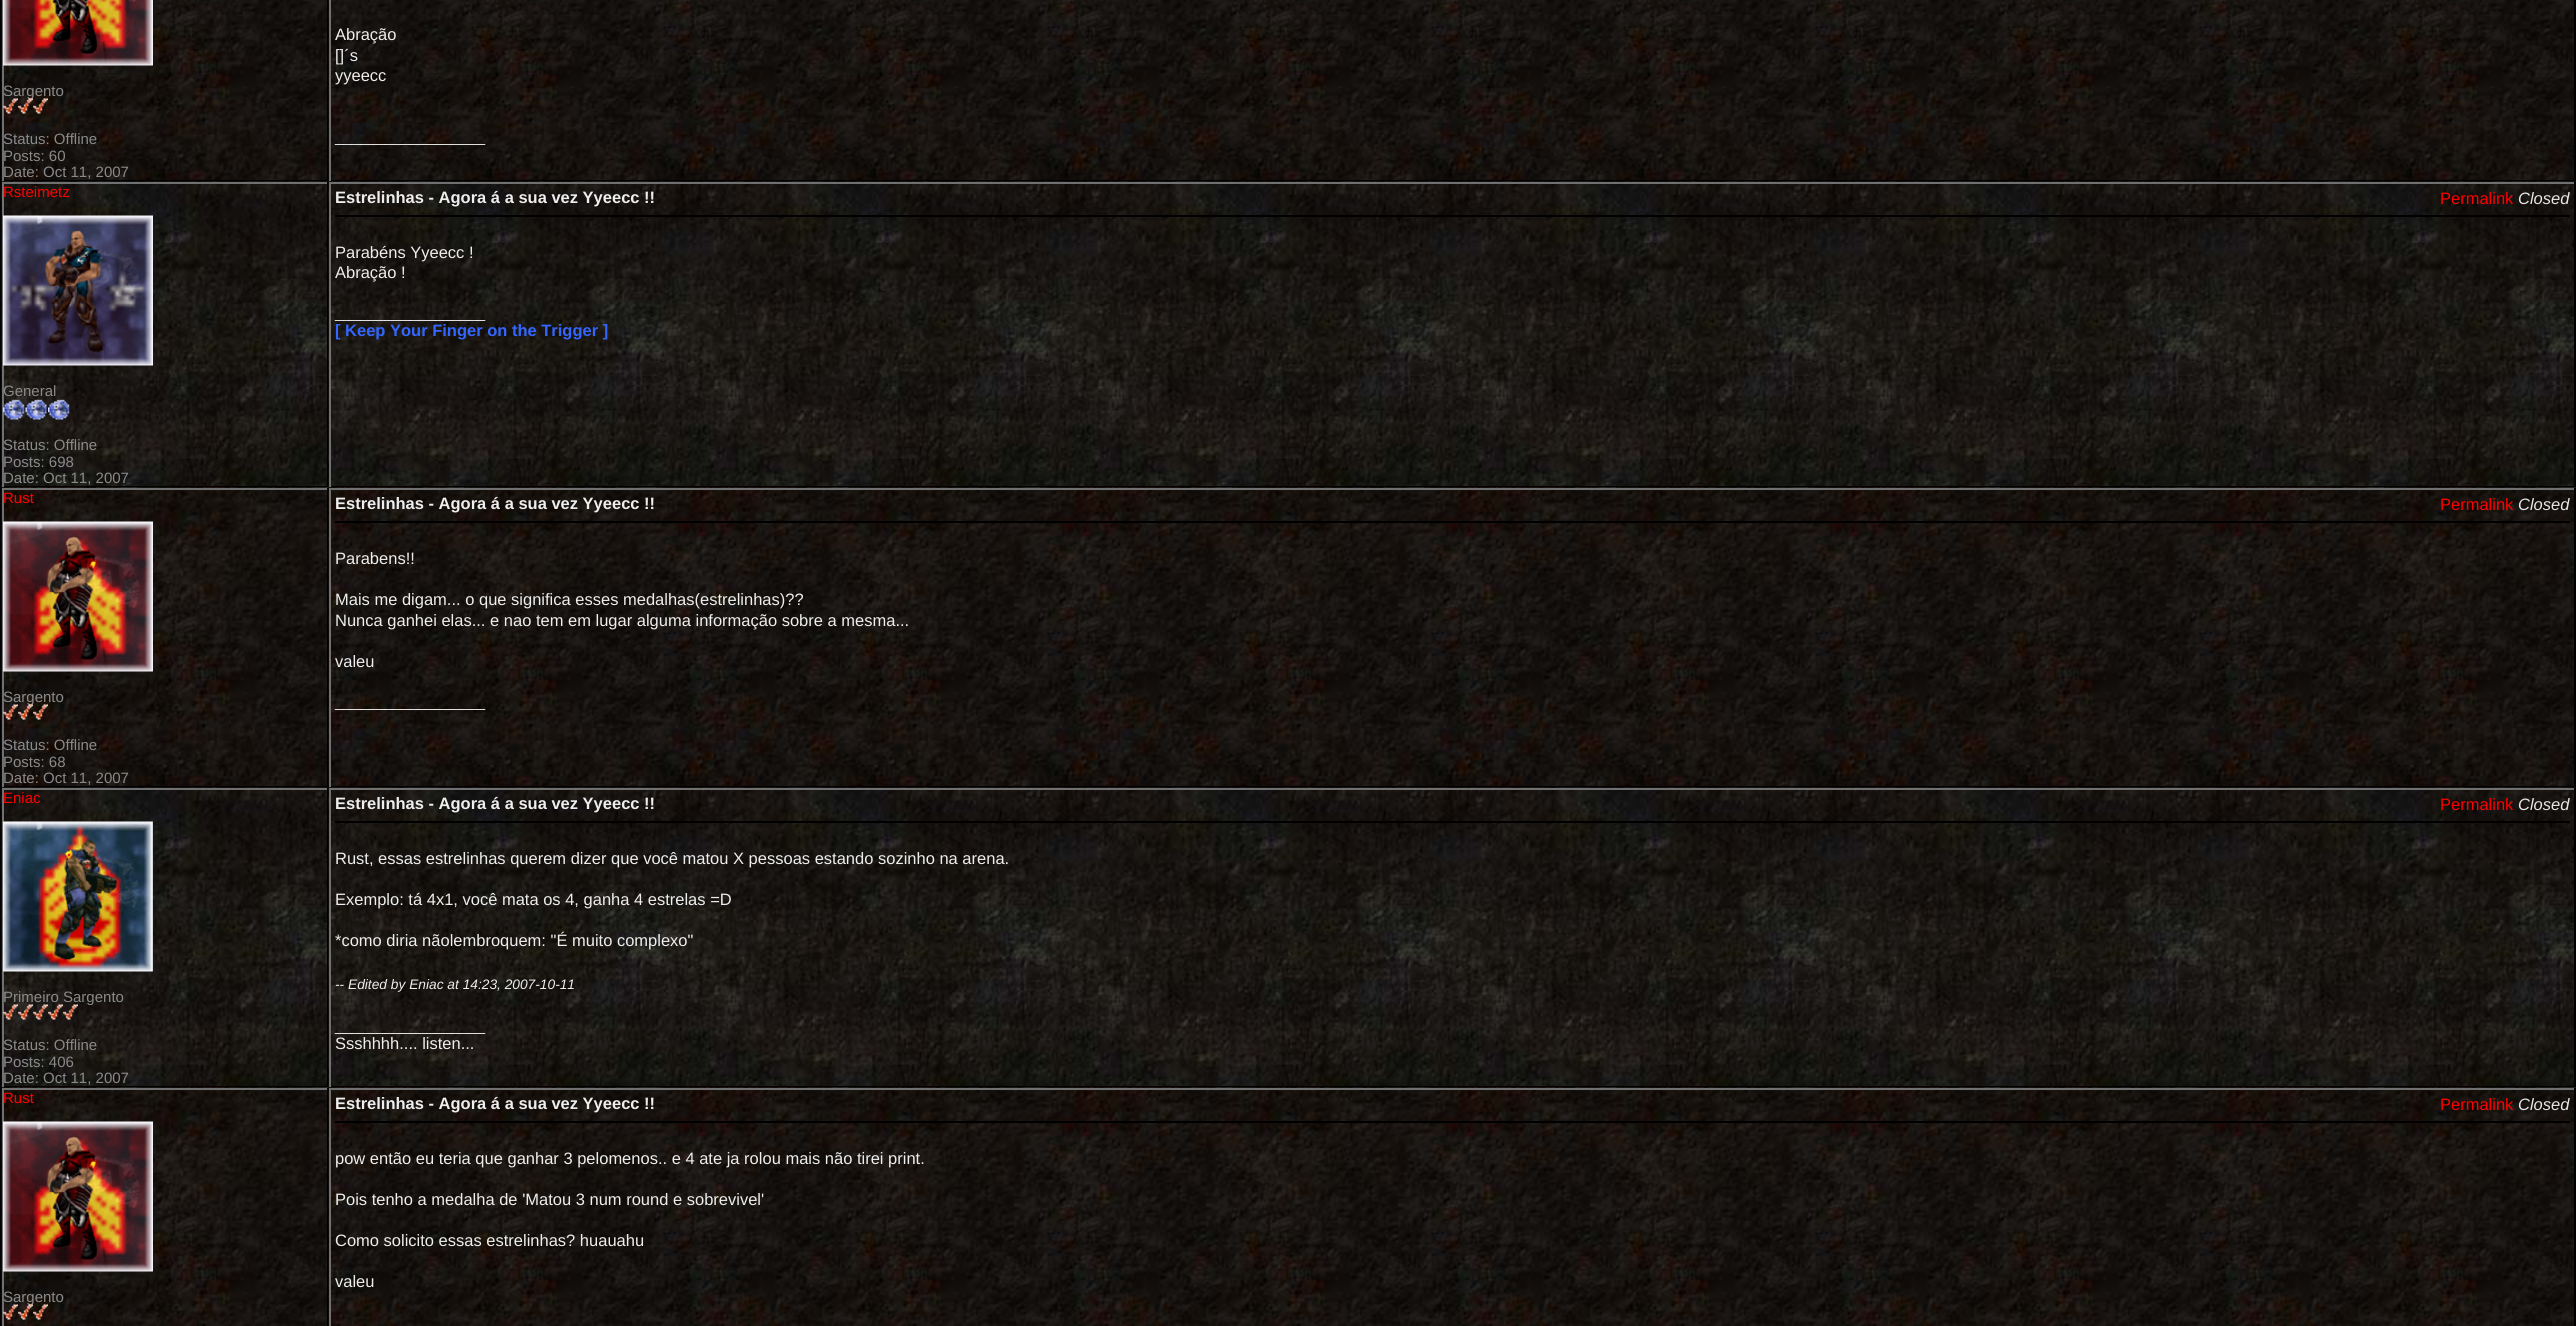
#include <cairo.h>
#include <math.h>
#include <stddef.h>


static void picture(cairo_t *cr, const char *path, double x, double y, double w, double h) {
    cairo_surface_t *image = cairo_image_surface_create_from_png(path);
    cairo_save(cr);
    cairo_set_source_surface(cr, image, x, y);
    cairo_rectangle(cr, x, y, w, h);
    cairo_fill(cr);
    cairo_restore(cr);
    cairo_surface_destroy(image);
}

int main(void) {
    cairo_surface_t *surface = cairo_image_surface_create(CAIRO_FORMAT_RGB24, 2576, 1326);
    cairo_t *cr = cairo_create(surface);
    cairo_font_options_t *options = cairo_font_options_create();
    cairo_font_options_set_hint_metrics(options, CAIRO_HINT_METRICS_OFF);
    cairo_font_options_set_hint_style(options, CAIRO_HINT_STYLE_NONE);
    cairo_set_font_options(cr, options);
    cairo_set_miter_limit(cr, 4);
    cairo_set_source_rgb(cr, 0.004, 0.004, 0.004);
    cairo_paint(cr);
    picture(cr, "img1.png", 1, 0, 326, 181);
    cairo_set_source_rgb(cr, 0, 0, 0);
    cairo_rectangle(cr, 2, 180, 327, 1);
    cairo_fill(cr);
    cairo_set_source_rgb(cr, 0.439, 0.439, 0.439);
    cairo_rectangle(cr, 2, 0, 2, 182);
    cairo_fill(cr);
    picture(cr, "img2.png", 3, 0, 150, 66);
    cairo_select_font_face(cr, "Liberation Sans", CAIRO_FONT_SLANT_NORMAL, CAIRO_FONT_WEIGHT_NORMAL);
    cairo_set_font_size(cr, 15);
    cairo_set_source_rgb(cr, 0.541, 0.541, 0.541);
    cairo_move_to(cr, 3, 96);
    cairo_show_text(cr, "Sargento");
    picture(cr, "img3.png", 3, 98, 15, 16);
    picture(cr, "img4.png", 18, 98, 15, 16);
    picture(cr, "img5.png", 33, 98, 15, 16);
    cairo_move_to(cr, 3, 144);
    cairo_show_text(cr, "Status: Offline");
    cairo_move_to(cr, 3, 161);
    cairo_show_text(cr, "Posts: 60");
    cairo_move_to(cr, 3, 177);
    cairo_show_text(cr, "Date: Oct 11, 2007");
    picture(cr, "img6.png", 328, 0, 2246, 181);
    cairo_set_source_rgb(cr, 0, 0, 0);
    cairo_rectangle(cr, 329, 180, 2247, 1);
    cairo_fill(cr);
    cairo_set_source_rgb(cr, 0.439, 0.439, 0.439);
    cairo_rectangle(cr, 329, 0, 2, 182);
    cairo_fill(cr);
    cairo_set_font_size(cr, 16.5);
    cairo_set_source_rgb(cr, 0.933, 0.933, 0.933);
    cairo_move_to(cr, 335, 40);
    cairo_show_text(cr, "Abração");
    cairo_move_to(cr, 335, 61);
    cairo_show_text(cr, "[]´s");
    cairo_move_to(cr, 335, 81);
    cairo_show_text(cr, "yyeecc");
    cairo_set_font_size(cr, 15);
    cairo_set_source_rgb(cr, 0.906, 0.906, 0.906);
    cairo_move_to(cr, 335, 142);
    cairo_show_text(cr, "__________________");
    picture(cr, "img7.png", 1, 181, 328, 306);
    cairo_set_source_rgb(cr, 0.439, 0.439, 0.439);
    cairo_rectangle(cr, 2, 182, 327, 2);
    cairo_fill(cr);
    cairo_set_source_rgb(cr, 0, 0, 0);
    cairo_rectangle(cr, 327, 182, 2, 306);
    cairo_fill(cr);
    cairo_rectangle(cr, 2, 486, 327, 1);
    cairo_fill(cr);
    cairo_set_source_rgb(cr, 0.439, 0.439, 0.439);
    cairo_rectangle(cr, 2, 182, 2, 306);
    cairo_fill(cr);
    cairo_set_source_rgb(cr, 1, 0, 0);
    cairo_move_to(cr, 3, 197);
    cairo_show_text(cr, "Rsteimetz");
    picture(cr, "img8.png", 3, 215, 150, 151);
    cairo_set_source_rgb(cr, 0.541, 0.541, 0.541);
    cairo_move_to(cr, 3, 396);
    cairo_show_text(cr, "General");
    picture(cr, "img9.png", 3, 399, 22, 21);
    picture(cr, "img10.png", 25, 399, 22, 21);
    picture(cr, "img11.png", 48, 399, 22, 21);
    cairo_move_to(cr, 3, 450);
    cairo_show_text(cr, "Status: Offline");
    cairo_move_to(cr, 3, 467);
    cairo_show_text(cr, "Posts: 698");
    cairo_move_to(cr, 3, 483);
    cairo_show_text(cr, "Date: Oct 11, 2007");
    picture(cr, "img12.png", 328, 181, 2248, 306);
    cairo_set_source_rgb(cr, 0.439, 0.439, 0.439);
    cairo_rectangle(cr, 329, 182, 2247, 2);
    cairo_fill(cr);
    cairo_set_source_rgb(cr, 0, 0, 0);
    cairo_rectangle(cr, 2574, 182, 2, 306);
    cairo_fill(cr);
    cairo_rectangle(cr, 329, 486, 2247, 1);
    cairo_fill(cr);
    cairo_set_source_rgb(cr, 0.439, 0.439, 0.439);
    cairo_rectangle(cr, 329, 182, 2, 306);
    cairo_fill(cr);
    cairo_select_font_face(cr, "Liberation Sans", CAIRO_FONT_SLANT_NORMAL, CAIRO_FONT_WEIGHT_BOLD);
    cairo_set_font_size(cr, 16.5);
    cairo_set_source_rgb(cr, 0.933, 0.933, 0.933);
    cairo_move_to(cr, 335, 203);
    cairo_show_text(cr, "Estrelinhas - Agora á a sua vez Yyeecc !!");
    cairo_select_font_face(cr, "Liberation Sans", CAIRO_FONT_SLANT_NORMAL, CAIRO_FONT_WEIGHT_NORMAL);
    cairo_set_source_rgb(cr, 1, 0, 0);
    cairo_move_to(cr, 2440, 204);
    cairo_show_text(cr, "Permalink");
    cairo_select_font_face(cr, "Liberation Sans", CAIRO_FONT_SLANT_ITALIC, CAIRO_FONT_WEIGHT_NORMAL);
    cairo_set_source_rgb(cr, 0.906, 0.906, 0.906);
    cairo_move_to(cr, 2518, 204);
    cairo_show_text(cr, "Closed");
    cairo_set_source_rgb(cr, 0, 0, 0);
    cairo_rectangle(cr, 335, 215, 2235, 2);
    cairo_fill(cr);
    cairo_select_font_face(cr, "Liberation Sans", CAIRO_FONT_SLANT_NORMAL, CAIRO_FONT_WEIGHT_NORMAL);
    cairo_set_source_rgb(cr, 0.933, 0.933, 0.933);
    cairo_move_to(cr, 335, 258);
    cairo_show_text(cr, "Parabéns Yyeecc !");
    cairo_move_to(cr, 335, 278);
    cairo_show_text(cr, "Abração !");
    cairo_set_font_size(cr, 15);
    cairo_set_source_rgb(cr, 0.906, 0.906, 0.906);
    cairo_move_to(cr, 335, 318);
    cairo_show_text(cr, "__________________");
    cairo_select_font_face(cr, "Liberation Sans", CAIRO_FONT_SLANT_NORMAL, CAIRO_FONT_WEIGHT_BOLD);
    cairo_set_font_size(cr, 16.5);
    cairo_set_source_rgb(cr, 0.2, 0.4, 1);
    cairo_move_to(cr, 335, 336);
    cairo_show_text(cr, "[ Keep Your Finger on the Trigger ]");
    picture(cr, "img13.png", 1, 487, 328, 300);
    cairo_set_source_rgb(cr, 0.439, 0.439, 0.439);
    cairo_rectangle(cr, 2, 488, 327, 2);
    cairo_fill(cr);
    cairo_set_source_rgb(cr, 0, 0, 0);
    cairo_rectangle(cr, 327, 488, 2, 300);
    cairo_fill(cr);
    cairo_rectangle(cr, 2, 786, 327, 1);
    cairo_fill(cr);
    cairo_set_source_rgb(cr, 0.439, 0.439, 0.439);
    cairo_rectangle(cr, 2, 488, 2, 300);
    cairo_fill(cr);
    cairo_select_font_face(cr, "Liberation Sans", CAIRO_FONT_SLANT_NORMAL, CAIRO_FONT_WEIGHT_NORMAL);
    cairo_set_font_size(cr, 15);
    cairo_set_source_rgb(cr, 1, 0, 0);
    cairo_move_to(cr, 3, 503);
    cairo_show_text(cr, "Rust");
    picture(cr, "img14.png", 3, 521, 150, 151);
    cairo_set_source_rgb(cr, 0.541, 0.541, 0.541);
    cairo_move_to(cr, 3, 702);
    cairo_show_text(cr, "Sargento");
    picture(cr, "img3.png", 3, 704, 15, 16);
    picture(cr, "img4.png", 18, 704, 15, 16);
    picture(cr, "img5.png", 33, 704, 15, 16);
    cairo_move_to(cr, 3, 750);
    cairo_show_text(cr, "Status: Offline");
    cairo_move_to(cr, 3, 767);
    cairo_show_text(cr, "Posts: 68");
    cairo_move_to(cr, 3, 783);
    cairo_show_text(cr, "Date: Oct 11, 2007");
    picture(cr, "img15.png", 328, 487, 2248, 300);
    cairo_set_source_rgb(cr, 0.439, 0.439, 0.439);
    cairo_rectangle(cr, 329, 488, 2247, 2);
    cairo_fill(cr);
    cairo_set_source_rgb(cr, 0, 0, 0);
    cairo_rectangle(cr, 2574, 488, 2, 300);
    cairo_fill(cr);
    cairo_rectangle(cr, 329, 786, 2247, 1);
    cairo_fill(cr);
    cairo_set_source_rgb(cr, 0.439, 0.439, 0.439);
    cairo_rectangle(cr, 329, 488, 2, 300);
    cairo_fill(cr);
    cairo_select_font_face(cr, "Liberation Sans", CAIRO_FONT_SLANT_NORMAL, CAIRO_FONT_WEIGHT_BOLD);
    cairo_set_font_size(cr, 16.5);
    cairo_set_source_rgb(cr, 0.933, 0.933, 0.933);
    cairo_move_to(cr, 335, 509);
    cairo_show_text(cr, "Estrelinhas - Agora á a sua vez Yyeecc !!");
    cairo_select_font_face(cr, "Liberation Sans", CAIRO_FONT_SLANT_NORMAL, CAIRO_FONT_WEIGHT_NORMAL);
    cairo_set_source_rgb(cr, 1, 0, 0);
    cairo_move_to(cr, 2440, 510);
    cairo_show_text(cr, "Permalink");
    cairo_select_font_face(cr, "Liberation Sans", CAIRO_FONT_SLANT_ITALIC, CAIRO_FONT_WEIGHT_NORMAL);
    cairo_set_source_rgb(cr, 0.906, 0.906, 0.906);
    cairo_move_to(cr, 2518, 510);
    cairo_show_text(cr, "Closed");
    cairo_set_source_rgb(cr, 0, 0, 0);
    cairo_rectangle(cr, 335, 521, 2235, 2);
    cairo_fill(cr);
    cairo_select_font_face(cr, "Liberation Sans", CAIRO_FONT_SLANT_NORMAL, CAIRO_FONT_WEIGHT_NORMAL);
    cairo_set_source_rgb(cr, 0.933, 0.933, 0.933);
    cairo_move_to(cr, 335, 564);
    cairo_show_text(cr, "Parabens!!");
    cairo_move_to(cr, 335, 605);
    cairo_show_text(cr, "Mais me digam... o que significa esses medalhas(estrelinhas)?\077");
    cairo_move_to(cr, 335, 626);
    cairo_show_text(cr, "Nunca ganhei elas... e nao tem em lugar alguma informação sobre a mesma...");
    cairo_move_to(cr, 335, 667);
    cairo_show_text(cr, "valeu");
    cairo_set_font_size(cr, 15);
    cairo_set_source_rgb(cr, 0.906, 0.906, 0.906);
    cairo_move_to(cr, 335, 707);
    cairo_show_text(cr, "__________________");
    picture(cr, "img16.png", 1, 787, 328, 300);
    cairo_set_source_rgb(cr, 0.439, 0.439, 0.439);
    cairo_rectangle(cr, 2, 788, 327, 2);
    cairo_fill(cr);
    cairo_set_source_rgb(cr, 0, 0, 0);
    cairo_rectangle(cr, 327, 788, 2, 300);
    cairo_fill(cr);
    cairo_rectangle(cr, 2, 1086, 327, 1);
    cairo_fill(cr);
    cairo_set_source_rgb(cr, 0.439, 0.439, 0.439);
    cairo_rectangle(cr, 2, 788, 2, 300);
    cairo_fill(cr);
    cairo_set_source_rgb(cr, 1, 0, 0);
    cairo_move_to(cr, 3, 803);
    cairo_show_text(cr, "Eniac");
    picture(cr, "img17.png", 3, 821, 150, 151);
    cairo_set_source_rgb(cr, 0.541, 0.541, 0.541);
    cairo_move_to(cr, 3, 1002);
    cairo_show_text(cr, "Primeiro Sargento");
    picture(cr, "img18.png", 3, 1004, 15, 16);
    picture(cr, "img19.png", 18, 1004, 15, 16);
    picture(cr, "img20.png", 33, 1004, 15, 16);
    picture(cr, "img21.png", 48, 1004, 15, 16);
    picture(cr, "img22.png", 63, 1004, 15, 16);
    cairo_move_to(cr, 3, 1050);
    cairo_show_text(cr, "Status: Offline");
    cairo_move_to(cr, 3, 1067);
    cairo_show_text(cr, "Posts: 406");
    cairo_move_to(cr, 3, 1083);
    cairo_show_text(cr, "Date: Oct 11, 2007");
    picture(cr, "img23.png", 328, 787, 2248, 300);
    cairo_set_source_rgb(cr, 0.439, 0.439, 0.439);
    cairo_rectangle(cr, 329, 788, 2247, 2);
    cairo_fill(cr);
    cairo_set_source_rgb(cr, 0, 0, 0);
    cairo_rectangle(cr, 2574, 788, 2, 300);
    cairo_fill(cr);
    cairo_rectangle(cr, 329, 1086, 2247, 1);
    cairo_fill(cr);
    cairo_set_source_rgb(cr, 0.439, 0.439, 0.439);
    cairo_rectangle(cr, 329, 788, 2, 300);
    cairo_fill(cr);
    cairo_select_font_face(cr, "Liberation Sans", CAIRO_FONT_SLANT_NORMAL, CAIRO_FONT_WEIGHT_BOLD);
    cairo_set_font_size(cr, 16.5);
    cairo_set_source_rgb(cr, 0.933, 0.933, 0.933);
    cairo_move_to(cr, 335, 809);
    cairo_show_text(cr, "Estrelinhas - Agora á a sua vez Yyeecc !!");
    cairo_select_font_face(cr, "Liberation Sans", CAIRO_FONT_SLANT_NORMAL, CAIRO_FONT_WEIGHT_NORMAL);
    cairo_set_source_rgb(cr, 1, 0, 0);
    cairo_move_to(cr, 2440, 810);
    cairo_show_text(cr, "Permalink");
    cairo_select_font_face(cr, "Liberation Sans", CAIRO_FONT_SLANT_ITALIC, CAIRO_FONT_WEIGHT_NORMAL);
    cairo_set_source_rgb(cr, 0.906, 0.906, 0.906);
    cairo_move_to(cr, 2518, 810);
    cairo_show_text(cr, "Closed");
    cairo_set_source_rgb(cr, 0, 0, 0);
    cairo_rectangle(cr, 335, 821, 2235, 2);
    cairo_fill(cr);
    cairo_select_font_face(cr, "Liberation Sans", CAIRO_FONT_SLANT_NORMAL, CAIRO_FONT_WEIGHT_NORMAL);
    cairo_set_source_rgb(cr, 0.933, 0.933, 0.933);
    cairo_move_to(cr, 335, 864);
    cairo_show_text(cr, "Rust, essas estrelinhas querem dizer que você matou X pessoas estando sozinho na arena.");
    cairo_move_to(cr, 335, 905);
    cairo_show_text(cr, "Exemplo: tá 4x1, você mata os 4, ganha 4 estrelas =D");
    cairo_move_to(cr, 335, 946);
    cairo_show_text(cr, "*como diria nãolembroquem: \"É muito complexo\"");
    cairo_select_font_face(cr, "Liberation Sans", CAIRO_FONT_SLANT_ITALIC, CAIRO_FONT_WEIGHT_NORMAL);
    cairo_set_font_size(cr, 13.75);
    cairo_move_to(cr, 335, 989);
    cairo_show_text(cr, "-- Edited by Eniac at 14:23, 2007-10-11");
    cairo_select_font_face(cr, "Liberation Sans", CAIRO_FONT_SLANT_NORMAL, CAIRO_FONT_WEIGHT_NORMAL);
    cairo_set_font_size(cr, 15);
    cairo_set_source_rgb(cr, 0.906, 0.906, 0.906);
    cairo_move_to(cr, 335, 1031);
    cairo_show_text(cr, "__________________");
    cairo_set_font_size(cr, 16.5);
    cairo_set_source_rgb(cr, 0.933, 0.933, 0.933);
    cairo_move_to(cr, 335, 1049);
    cairo_show_text(cr, "Ssshhhh.... listen...");
    picture(cr, "img24.png", 1, 1087, 328, 239);
    cairo_set_source_rgb(cr, 0.439, 0.439, 0.439);
    cairo_rectangle(cr, 2, 1088, 327, 2);
    cairo_fill(cr);
    cairo_set_source_rgb(cr, 0, 0, 0);
    cairo_rectangle(cr, 327, 1088, 2, 238);
    cairo_fill(cr);
    cairo_set_source_rgb(cr, 0.439, 0.439, 0.439);
    cairo_rectangle(cr, 2, 1088, 2, 238);
    cairo_fill(cr);
    cairo_set_font_size(cr, 15);
    cairo_set_source_rgb(cr, 1, 0, 0);
    cairo_move_to(cr, 3, 1103);
    cairo_show_text(cr, "Rust");
    picture(cr, "img14.png", 3, 1121, 150, 151);
    cairo_set_source_rgb(cr, 0.541, 0.541, 0.541);
    cairo_move_to(cr, 3, 1302);
    cairo_show_text(cr, "Sargento");
    picture(cr, "img3.png", 3, 1304, 15, 16);
    picture(cr, "img4.png", 18, 1304, 15, 16);
    picture(cr, "img5.png", 33, 1304, 15, 16);
    picture(cr, "img25.png", 328, 1087, 2248, 239);
    cairo_set_source_rgb(cr, 0.439, 0.439, 0.439);
    cairo_rectangle(cr, 329, 1088, 2247, 2);
    cairo_fill(cr);
    cairo_set_source_rgb(cr, 0, 0, 0);
    cairo_rectangle(cr, 2574, 1088, 2, 238);
    cairo_fill(cr);
    cairo_set_source_rgb(cr, 0.439, 0.439, 0.439);
    cairo_rectangle(cr, 329, 1088, 2, 238);
    cairo_fill(cr);
    cairo_select_font_face(cr, "Liberation Sans", CAIRO_FONT_SLANT_NORMAL, CAIRO_FONT_WEIGHT_BOLD);
    cairo_set_font_size(cr, 16.5);
    cairo_set_source_rgb(cr, 0.933, 0.933, 0.933);
    cairo_move_to(cr, 335, 1109);
    cairo_show_text(cr, "Estrelinhas - Agora á a sua vez Yyeecc !!");
    cairo_select_font_face(cr, "Liberation Sans", CAIRO_FONT_SLANT_NORMAL, CAIRO_FONT_WEIGHT_NORMAL);
    cairo_set_source_rgb(cr, 1, 0, 0);
    cairo_move_to(cr, 2440, 1110);
    cairo_show_text(cr, "Permalink");
    cairo_select_font_face(cr, "Liberation Sans", CAIRO_FONT_SLANT_ITALIC, CAIRO_FONT_WEIGHT_NORMAL);
    cairo_set_source_rgb(cr, 0.906, 0.906, 0.906);
    cairo_move_to(cr, 2518, 1110);
    cairo_show_text(cr, "Closed");
    cairo_set_source_rgb(cr, 0, 0, 0);
    cairo_rectangle(cr, 335, 1121, 2235, 2);
    cairo_fill(cr);
    cairo_select_font_face(cr, "Liberation Sans", CAIRO_FONT_SLANT_NORMAL, CAIRO_FONT_WEIGHT_NORMAL);
    cairo_set_source_rgb(cr, 0.933, 0.933, 0.933);
    cairo_move_to(cr, 335, 1164);
    cairo_show_text(cr, "pow então eu teria que ganhar 3 pelomenos.. e 4 ate ja rolou mais não tirei print.");
    cairo_move_to(cr, 335, 1205);
    cairo_show_text(cr, "Pois tenho a medalha de 'Matou 3 num round e sobrevivel'");
    cairo_move_to(cr, 335, 1246);
    cairo_show_text(cr, "Como solicito essas estrelinhas? huauahu");
    cairo_move_to(cr, 335, 1287);
    cairo_show_text(cr, "valeu");
    cairo_surface_write_to_png(surface, "page.png");
    cairo_font_options_destroy(options);
    cairo_destroy(cr);
    cairo_surface_destroy(surface);
    return 0;
}
